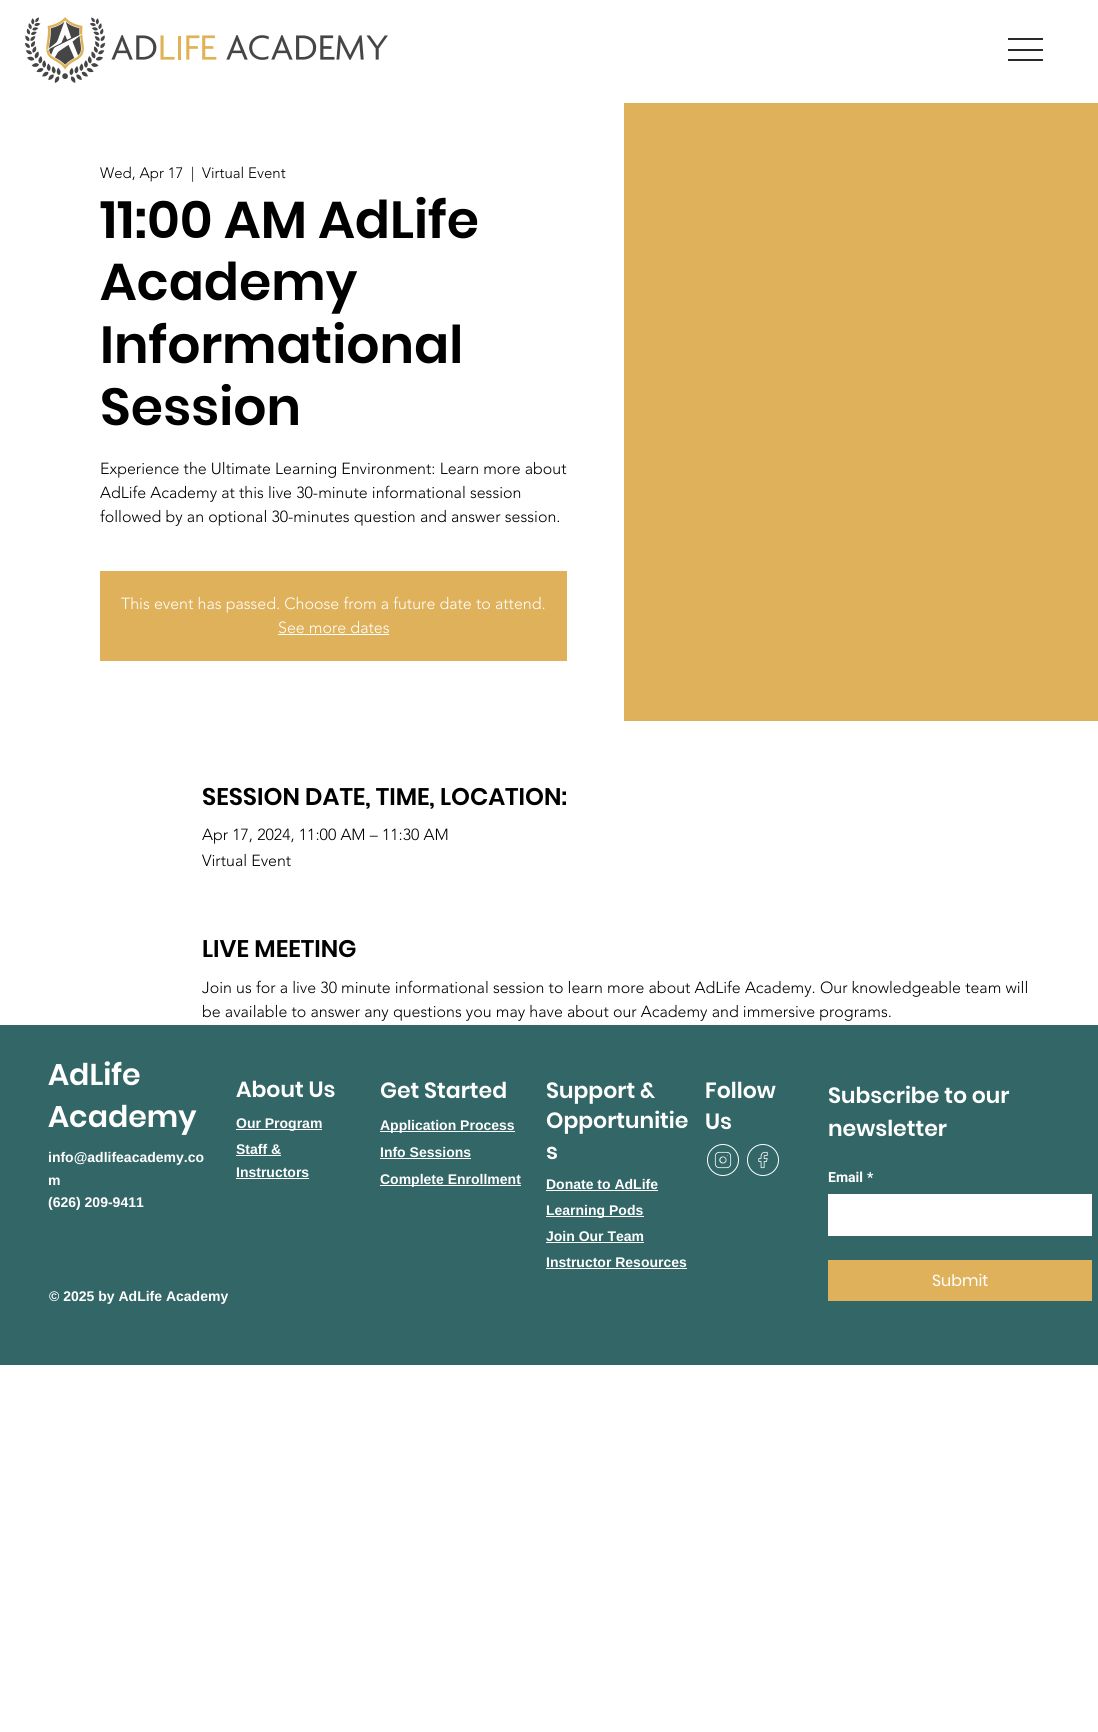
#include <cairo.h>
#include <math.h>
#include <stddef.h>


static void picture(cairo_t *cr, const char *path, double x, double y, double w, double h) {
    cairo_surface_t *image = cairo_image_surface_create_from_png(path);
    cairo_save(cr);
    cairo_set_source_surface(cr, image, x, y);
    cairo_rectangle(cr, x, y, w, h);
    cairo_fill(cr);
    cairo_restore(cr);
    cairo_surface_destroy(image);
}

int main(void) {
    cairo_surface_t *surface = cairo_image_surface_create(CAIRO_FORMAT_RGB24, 1098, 1732);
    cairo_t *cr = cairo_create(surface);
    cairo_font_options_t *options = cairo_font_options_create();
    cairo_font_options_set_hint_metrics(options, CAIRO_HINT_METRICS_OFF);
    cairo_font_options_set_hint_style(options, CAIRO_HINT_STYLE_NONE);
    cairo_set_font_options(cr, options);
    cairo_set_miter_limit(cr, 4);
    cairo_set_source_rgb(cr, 1, 1, 1);
    cairo_paint(cr);
    picture(cr, "img1.png", 25, 17, 363, 66);
    cairo_set_source_rgb(cr, 0.165, 0.165, 0.165);
    cairo_rectangle(cr, 1008, 38, 35, 2);
    cairo_fill(cr);
    cairo_rectangle(cr, 1008, 49, 35, 2);
    cairo_fill(cr);
    cairo_rectangle(cr, 1008, 59, 35, 2);
    cairo_fill(cr);
    cairo_select_font_face(cr, "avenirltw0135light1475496 Light", CAIRO_FONT_SLANT_NORMAL, CAIRO_FONT_WEIGHT_NORMAL);
    cairo_set_font_size(cr, 15);
    cairo_set_source_rgb(cr, 0, 0, 0);
    cairo_move_to(cr, 100, 178);
    cairo_show_text(cr, "Wed, Apr 17");
    cairo_move_to(cr, 191, 178);
    cairo_show_text(cr, "|");
    cairo_move_to(cr, 202, 178);
    cairo_show_text(cr, "Virtual Event");
    cairo_select_font_face(cr, "Poppins SemiBold", CAIRO_FONT_SLANT_NORMAL, CAIRO_FONT_WEIGHT_NORMAL);
    cairo_set_font_size(cr, 52);
    cairo_move_to(cr, 100, 238);
    cairo_show_text(cr, "11:00 AM AdLife");
    cairo_move_to(cr, 100, 300);
    cairo_show_text(cr, "Academy");
    cairo_move_to(cr, 100, 363);
    cairo_show_text(cr, "Informational");
    cairo_move_to(cr, 100, 425);
    cairo_show_text(cr, "Session");
    cairo_select_font_face(cr, "avenirltw0135light1475496 Light", CAIRO_FONT_SLANT_NORMAL, CAIRO_FONT_WEIGHT_NORMAL);
    cairo_set_font_size(cr, 16);
    cairo_move_to(cr, 100, 474);
    cairo_show_text(cr, "Experience the Ultimate Learning Environment: Learn more about");
    cairo_move_to(cr, 100, 498);
    cairo_show_text(cr, "AdLife Academy at this live 30-minute informational session");
    cairo_move_to(cr, 100, 522);
    cairo_show_text(cr, "followed by an optional 30-minutes question and answer session.");
    cairo_set_source_rgb(cr, 0.875, 0.694, 0.357);
    cairo_rectangle(cr, 100, 571, 467, 90);
    cairo_fill(cr);
    cairo_set_source_rgb(cr, 1, 1, 1);
    cairo_move_to(cr, 121, 609);
    cairo_show_text(cr, "This event has passed. Choose from a future date to attend.");
    cairo_move_to(cr, 278, 633);
    cairo_show_text(cr, "See more dates");
    cairo_rectangle(cr, 278, 634, 111, 1);
    cairo_fill(cr);
    cairo_set_source_rgb(cr, 0.875, 0.694, 0.357);
    cairo_rectangle(cr, 624, 103, 474, 618);
    cairo_fill(cr);
    cairo_select_font_face(cr, "Poppins SemiBold", CAIRO_FONT_SLANT_NORMAL, CAIRO_FONT_WEIGHT_NORMAL);
    cairo_set_font_size(cr, 24);
    cairo_set_source_rgb(cr, 0, 0, 0);
    cairo_move_to(cr, 202, 805);
    cairo_show_text(cr, "SESSION DATE, TIME, LOCATION:");
    cairo_select_font_face(cr, "avenirltw0135light1475496 Light", CAIRO_FONT_SLANT_NORMAL, CAIRO_FONT_WEIGHT_NORMAL);
    cairo_set_font_size(cr, 16);
    cairo_move_to(cr, 202, 840);
    cairo_show_text(cr, "Apr 17, 2024, 11:00 AM – 11:30 AM");
    cairo_move_to(cr, 202, 866);
    cairo_show_text(cr, "Virtual Event");
    cairo_select_font_face(cr, "Poppins SemiBold", CAIRO_FONT_SLANT_NORMAL, CAIRO_FONT_WEIGHT_NORMAL);
    cairo_set_font_size(cr, 24);
    cairo_move_to(cr, 202, 957);
    cairo_show_text(cr, "LIVE MEETING");
    cairo_select_font_face(cr, "avenirltw0135light1475496 Light", CAIRO_FONT_SLANT_NORMAL, CAIRO_FONT_WEIGHT_NORMAL);
    cairo_set_font_size(cr, 16);
    cairo_move_to(cr, 202, 993);
    cairo_show_text(cr, "Join us for a live 30 minute informational session to learn more about AdLife Academy. Our knowledgeable team will");
    cairo_move_to(cr, 202, 1017);
    cairo_show_text(cr, "be available to answer any questions you may have about our Academy and immersive programs.");
    cairo_set_source_rgb(cr, 0.2, 0.4, 0.4);
    cairo_rectangle(cr, 0, 1025, 1098, 340);
    cairo_fill(cr);
    cairo_select_font_face(cr, "Poppins SemiBold", CAIRO_FONT_SLANT_NORMAL, CAIRO_FONT_WEIGHT_NORMAL);
    cairo_set_font_size(cr, 30);
    cairo_set_source_rgb(cr, 1, 1, 1);
    cairo_move_to(cr, 48, 1085);
    cairo_show_text(cr, "AdLife");
    cairo_move_to(cr, 48, 1127);
    cairo_show_text(cr, "Academy");
    cairo_select_font_face(cr, "Liberation Sans", CAIRO_FONT_SLANT_NORMAL, CAIRO_FONT_WEIGHT_BOLD);
    cairo_set_font_size(cr, 14);
    cairo_move_to(cr, 48, 1162);
    cairo_show_text(cr, "info@adlifeacademy.co");
    cairo_move_to(cr, 48, 1185);
    cairo_show_text(cr, "m");
    cairo_move_to(cr, 48, 1207);
    cairo_show_text(cr, "(626) 209-9411");
    cairo_select_font_face(cr, "Poppins SemiBold", CAIRO_FONT_SLANT_NORMAL, CAIRO_FONT_WEIGHT_NORMAL);
    cairo_set_font_size(cr, 22);
    cairo_move_to(cr, 236, 1097);
    cairo_show_text(cr, "About Us");
    cairo_rectangle(cr, 236, 1129, 86, 1);
    cairo_fill(cr);
    cairo_select_font_face(cr, "Liberation Sans", CAIRO_FONT_SLANT_NORMAL, CAIRO_FONT_WEIGHT_BOLD);
    cairo_set_font_size(cr, 14);
    cairo_move_to(cr, 236, 1128);
    cairo_show_text(cr, "Our Program");
    cairo_move_to(cr, 236, 1154);
    cairo_show_text(cr, "Staff &");
    cairo_rectangle(cr, 236, 1155, 45, 1);
    cairo_fill(cr);
    cairo_move_to(cr, 236, 1177);
    cairo_show_text(cr, "Instructors");
    cairo_rectangle(cr, 236, 1178, 73, 1);
    cairo_fill(cr);
    cairo_select_font_face(cr, "Poppins SemiBold", CAIRO_FONT_SLANT_NORMAL, CAIRO_FONT_WEIGHT_NORMAL);
    cairo_set_font_size(cr, 22);
    cairo_move_to(cr, 380, 1098);
    cairo_show_text(cr, "Get Started");
    cairo_rectangle(cr, 380, 1131, 135, 1);
    cairo_fill(cr);
    cairo_select_font_face(cr, "Liberation Sans", CAIRO_FONT_SLANT_NORMAL, CAIRO_FONT_WEIGHT_BOLD);
    cairo_set_font_size(cr, 14);
    cairo_move_to(cr, 380, 1130);
    cairo_show_text(cr, "Application Process");
    cairo_move_to(cr, 380, 1157);
    cairo_show_text(cr, "Info Sessions");
    cairo_rectangle(cr, 380, 1158, 91, 1);
    cairo_fill(cr);
    cairo_rectangle(cr, 380, 1185, 141, 1);
    cairo_fill(cr);
    cairo_move_to(cr, 380, 1184);
    cairo_show_text(cr, "Complete Enrollment");
    cairo_select_font_face(cr, "Poppins SemiBold", CAIRO_FONT_SLANT_NORMAL, CAIRO_FONT_WEIGHT_NORMAL);
    cairo_set_font_size(cr, 22);
    cairo_move_to(cr, 546, 1098);
    cairo_show_text(cr, "Support &");
    cairo_move_to(cr, 546, 1128);
    cairo_show_text(cr, "Opportunitie");
    cairo_move_to(cr, 546, 1159);
    cairo_show_text(cr, "s");
    cairo_select_font_face(cr, "Liberation Sans", CAIRO_FONT_SLANT_NORMAL, CAIRO_FONT_WEIGHT_BOLD);
    cairo_set_font_size(cr, 14);
    cairo_move_to(cr, 546, 1189);
    cairo_show_text(cr, "Donate to AdLife");
    cairo_rectangle(cr, 546, 1190, 112, 1);
    cairo_fill(cr);
    cairo_rectangle(cr, 546, 1216, 98, 1);
    cairo_fill(cr);
    cairo_move_to(cr, 546, 1215);
    cairo_show_text(cr, "Learning Pods");
    cairo_move_to(cr, 546, 1241);
    cairo_show_text(cr, "Join Our Team");
    cairo_rectangle(cr, 546, 1242, 98, 1);
    cairo_fill(cr);
    cairo_move_to(cr, 546, 1267);
    cairo_show_text(cr, "Instructor Resources");
    cairo_rectangle(cr, 546, 1268, 141, 1);
    cairo_fill(cr);
    cairo_select_font_face(cr, "Poppins SemiBold", CAIRO_FONT_SLANT_NORMAL, CAIRO_FONT_WEIGHT_NORMAL);
    cairo_set_font_size(cr, 22);
    cairo_move_to(cr, 705, 1098);
    cairo_show_text(cr, "Follow");
    cairo_move_to(cr, 705, 1129);
    cairo_show_text(cr, "Us");
    cairo_new_path(cr);
    cairo_arc(cr, 723, 1160, 15.5, 0, 2 * M_PI);
    cairo_set_line_width(cr, 1);
    cairo_stroke(cr);
    picture(cr, "img2.png", 714, 1151, 18, 18);
    cairo_arc(cr, 763, 1160, 15.5, 0, 2 * M_PI);
    cairo_stroke(cr);
    picture(cr, "img3.png", 758, 1151, 10, 18);
    cairo_move_to(cr, 828, 1103);
    cairo_show_text(cr, "Subscribe to our");
    cairo_move_to(cr, 828, 1136);
    cairo_show_text(cr, "newsletter");
    cairo_select_font_face(cr, "Roboto", CAIRO_FONT_SLANT_NORMAL, CAIRO_FONT_WEIGHT_BOLD);
    cairo_set_font_size(cr, 14);
    cairo_move_to(cr, 828, 1182);
    cairo_show_text(cr, "Email");
    cairo_move_to(cr, 867, 1182);
    cairo_show_text(cr, "*");
    cairo_rectangle(cr, 828, 1194, 264, 42);
    cairo_fill(cr);
    cairo_set_source_rgb(cr, 0.875, 0.694, 0.357);
    cairo_rectangle(cr, 828, 1260, 264, 41);
    cairo_fill(cr);
    cairo_select_font_face(cr, "Poppins", CAIRO_FONT_SLANT_NORMAL, CAIRO_FONT_WEIGHT_NORMAL);
    cairo_set_font_size(cr, 16);
    cairo_set_source_rgb(cr, 1, 1, 1);
    cairo_move_to(cr, 932, 1286);
    cairo_show_text(cr, "Submit");
    cairo_select_font_face(cr, "Liberation Sans", CAIRO_FONT_SLANT_NORMAL, CAIRO_FONT_WEIGHT_BOLD);
    cairo_set_font_size(cr, 14);
    cairo_move_to(cr, 49, 1301);
    cairo_show_text(cr, "© 2025 by AdLife Academy");
    cairo_surface_write_to_png(surface, "page.png");
    cairo_font_options_destroy(options);
    cairo_destroy(cr);
    cairo_surface_destroy(surface);
    return 0;
}
